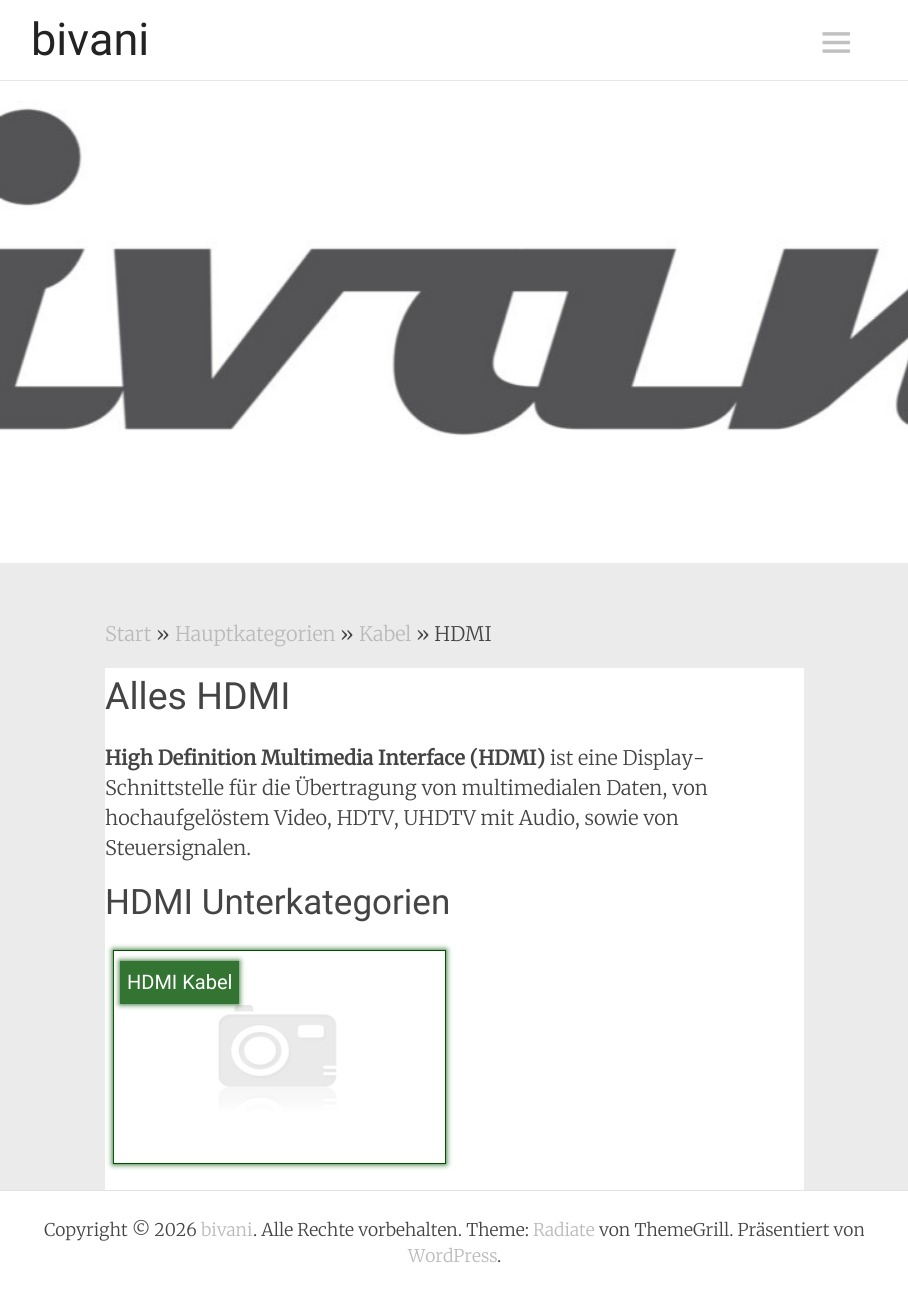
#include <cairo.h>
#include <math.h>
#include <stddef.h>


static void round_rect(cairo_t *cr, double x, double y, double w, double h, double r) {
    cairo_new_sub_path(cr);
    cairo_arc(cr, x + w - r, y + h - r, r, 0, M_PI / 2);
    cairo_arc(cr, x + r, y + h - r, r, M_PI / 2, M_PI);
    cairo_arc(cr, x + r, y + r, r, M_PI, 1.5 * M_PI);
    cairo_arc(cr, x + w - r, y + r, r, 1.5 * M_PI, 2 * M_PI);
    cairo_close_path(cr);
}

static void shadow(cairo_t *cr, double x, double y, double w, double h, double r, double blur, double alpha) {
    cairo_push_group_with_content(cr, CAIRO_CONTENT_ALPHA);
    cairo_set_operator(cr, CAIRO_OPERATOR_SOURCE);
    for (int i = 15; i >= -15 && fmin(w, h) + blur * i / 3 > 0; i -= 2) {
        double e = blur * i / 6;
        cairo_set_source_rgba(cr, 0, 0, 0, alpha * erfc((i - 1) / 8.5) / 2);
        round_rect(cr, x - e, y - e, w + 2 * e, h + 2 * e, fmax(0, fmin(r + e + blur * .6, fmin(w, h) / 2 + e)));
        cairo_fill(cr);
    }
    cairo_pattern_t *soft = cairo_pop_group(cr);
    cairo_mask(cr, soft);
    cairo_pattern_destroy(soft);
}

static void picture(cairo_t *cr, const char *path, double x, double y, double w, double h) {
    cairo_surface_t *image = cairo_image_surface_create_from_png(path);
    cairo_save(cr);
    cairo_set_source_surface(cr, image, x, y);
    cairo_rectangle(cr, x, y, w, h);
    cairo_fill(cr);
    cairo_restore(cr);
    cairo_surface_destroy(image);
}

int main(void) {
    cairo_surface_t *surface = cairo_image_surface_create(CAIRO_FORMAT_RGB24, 908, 1303);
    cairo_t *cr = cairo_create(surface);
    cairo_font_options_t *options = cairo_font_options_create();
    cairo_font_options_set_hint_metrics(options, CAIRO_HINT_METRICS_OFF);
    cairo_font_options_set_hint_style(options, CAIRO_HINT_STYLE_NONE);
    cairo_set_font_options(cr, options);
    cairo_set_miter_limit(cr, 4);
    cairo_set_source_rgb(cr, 1, 1, 1);
    cairo_paint(cr);
    cairo_set_source_rgb(cr, 0.894, 0.906, 0.914);
    cairo_rectangle(cr, 0, 80, 908, 1);
    cairo_fill(cr);
    cairo_select_font_face(cr, "Roboto", CAIRO_FONT_SLANT_NORMAL, CAIRO_FONT_WEIGHT_NORMAL);
    cairo_set_font_size(cr, 45);
    cairo_set_source_rgb(cr, 0.137, 0.137, 0.137);
    cairo_move_to(cr, 31, 55);
    cairo_show_text(cr, "bivani");
    picture(cr, "img1.png", 822, 32, 28, 21);
    cairo_set_source_rgb(cr, 0.918, 0.918, 0.918);
    cairo_rectangle(cr, 0, 563, 908, 627);
    cairo_fill(cr);
    cairo_select_font_face(cr, "Merriweather Light", CAIRO_FONT_SLANT_NORMAL, CAIRO_FONT_WEIGHT_NORMAL);
    cairo_set_font_size(cr, 20);
    cairo_set_source_rgb(cr, 0.729, 0.729, 0.729);
    cairo_move_to(cr, 105, 641);
    cairo_show_text(cr, "Start");
    cairo_set_source_rgb(cr, 0.267, 0.267, 0.267);
    cairo_move_to(cr, 156, 641);
    cairo_show_text(cr, "»");
    cairo_set_source_rgb(cr, 0.729, 0.729, 0.729);
    cairo_move_to(cr, 175, 641);
    cairo_show_text(cr, "Hauptkategorien");
    cairo_set_source_rgb(cr, 0.267, 0.267, 0.267);
    cairo_move_to(cr, 340, 641);
    cairo_show_text(cr, "»");
    cairo_set_source_rgb(cr, 0.729, 0.729, 0.729);
    cairo_move_to(cr, 359, 641);
    cairo_show_text(cr, "Kabel");
    cairo_set_source_rgb(cr, 0.267, 0.267, 0.267);
    cairo_move_to(cr, 416, 641);
    cairo_show_text(cr, "» HDMI");
    cairo_set_source_rgb(cr, 1, 1, 1);
    cairo_rectangle(cr, 105, 668, 699, 522);
    cairo_fill(cr);
    cairo_select_font_face(cr, "Roboto", CAIRO_FONT_SLANT_NORMAL, CAIRO_FONT_WEIGHT_NORMAL);
    cairo_set_font_size(cr, 37.5);
    cairo_set_source_rgb(cr, 0.267, 0.267, 0.267);
    cairo_move_to(cr, 105, 709);
    cairo_show_text(cr, "Alles HDMI");
    cairo_select_font_face(cr, "Merriweather", CAIRO_FONT_SLANT_NORMAL, CAIRO_FONT_WEIGHT_BOLD);
    cairo_set_font_size(cr, 20);
    cairo_move_to(cr, 105, 765);
    cairo_show_text(cr, "High Definition Multimedia Interface (HDMI)");
    cairo_select_font_face(cr, "Merriweather Light", CAIRO_FONT_SLANT_NORMAL, CAIRO_FONT_WEIGHT_NORMAL);
    cairo_move_to(cr, 550, 765);
    cairo_show_text(cr, "ist eine Display-");
    cairo_move_to(cr, 105, 795);
    cairo_show_text(cr, "Schnittstelle für die Übertragung von multimedialen Daten, von");
    cairo_move_to(cr, 105, 825);
    cairo_show_text(cr, "hochaufgelöstem Video, HDTV, UHDTV mit Audio, sowie von");
    cairo_move_to(cr, 105, 855);
    cairo_show_text(cr, "Steuersignalen.");
    cairo_select_font_face(cr, "Roboto", CAIRO_FONT_SLANT_NORMAL, CAIRO_FONT_WEIGHT_NORMAL);
    cairo_set_font_size(cr, 35);
    cairo_move_to(cr, 105, 914);
    cairo_show_text(cr, "HDMI Unterkategorien");
    cairo_save(cr);
    cairo_set_fill_rule(cr, CAIRO_FILL_RULE_EVEN_ODD);
    cairo_new_path(cr);
    cairo_move_to(cr, 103, 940);
    cairo_line_to(cr, 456, 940);
    cairo_line_to(cr, 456, 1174);
    cairo_line_to(cr, 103, 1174);
    cairo_close_path(cr);
    cairo_move_to(cr, 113, 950);
    cairo_line_to(cr, 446, 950);
    cairo_line_to(cr, 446, 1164);
    cairo_line_to(cr, 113, 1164);
    cairo_close_path(cr);
    cairo_clip(cr);
    cairo_set_source_rgb(cr, 0, 0.322, 0);
    shadow(cr, 113, 950, 333, 214, 0, 3, 1);
    cairo_restore(cr);
    cairo_rectangle(cr, 113.5, 950.5, 332, 213);
    cairo_set_source_rgb(cr, 0, 0.322, 0);
    cairo_set_line_width(cr, 1);
    cairo_stroke(cr);
    picture(cr, "img2.png", 113, 951, 224, 211);
    cairo_save(cr);
    cairo_set_fill_rule(cr, CAIRO_FILL_RULE_EVEN_ODD);
    cairo_new_path(cr);
    cairo_move_to(cr, 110, 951);
    cairo_line_to(cr, 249, 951);
    cairo_line_to(cr, 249, 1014);
    cairo_line_to(cr, 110, 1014);
    cairo_close_path(cr);
    cairo_move_to(cr, 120, 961);
    cairo_line_to(cr, 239, 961);
    cairo_line_to(cr, 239, 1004);
    cairo_line_to(cr, 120, 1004);
    cairo_close_path(cr);
    cairo_clip(cr);
    cairo_set_source_rgb(cr, 0, 0.322, 0);
    shadow(cr, 120, 961, 119, 43, 0, 3, 1);
    cairo_restore(cr);
    cairo_set_source_rgba(cr, 0, 0.322, 0, 0.8);
    cairo_rectangle(cr, 120, 961, 119, 43);
    cairo_fill(cr);
    cairo_set_font_size(cr, 20);
    cairo_set_source_rgb(cr, 1, 1, 1);
    cairo_move_to(cr, 127, 989);
    cairo_show_text(cr, "HDMI Kabel");
    cairo_set_source_rgb(cr, 0.882, 0.894, 0.902);
    cairo_rectangle(cr, 0, 1190, 908, 1);
    cairo_fill(cr);
    cairo_select_font_face(cr, "Merriweather Light", CAIRO_FONT_SLANT_NORMAL, CAIRO_FONT_WEIGHT_NORMAL);
    cairo_set_font_size(cr, 17.5);
    cairo_set_source_rgb(cr, 0.267, 0.267, 0.267);
    cairo_move_to(cr, 44, 1236);
    cairo_show_text(cr, "Copyright © 2026");
    cairo_set_source_rgb(cr, 0.729, 0.729, 0.729);
    cairo_move_to(cr, 201, 1236);
    cairo_show_text(cr, "bivani");
    cairo_set_source_rgb(cr, 0.267, 0.267, 0.267);
    cairo_move_to(cr, 253, 1236);
    cairo_show_text(cr, ". Alle Rechte vorbehalten. Theme:");
    cairo_set_source_rgb(cr, 0.729, 0.729, 0.729);
    cairo_move_to(cr, 533, 1236);
    cairo_show_text(cr, "Radiate");
    cairo_set_source_rgb(cr, 0.267, 0.267, 0.267);
    cairo_move_to(cr, 599, 1236);
    cairo_show_text(cr, "von ThemeGrill. Präsentiert von");
    cairo_set_source_rgb(cr, 0.729, 0.729, 0.729);
    cairo_move_to(cr, 408, 1262);
    cairo_show_text(cr, "WordPress");
    cairo_set_source_rgb(cr, 0.267, 0.267, 0.267);
    cairo_move_to(cr, 497, 1262);
    cairo_show_text(cr, ".");
    picture(cr, "img3.png", 0, 101, 908, 336);
    cairo_surface_write_to_png(surface, "page.png");
    cairo_font_options_destroy(options);
    cairo_destroy(cr);
    cairo_surface_destroy(surface);
    return 0;
}
